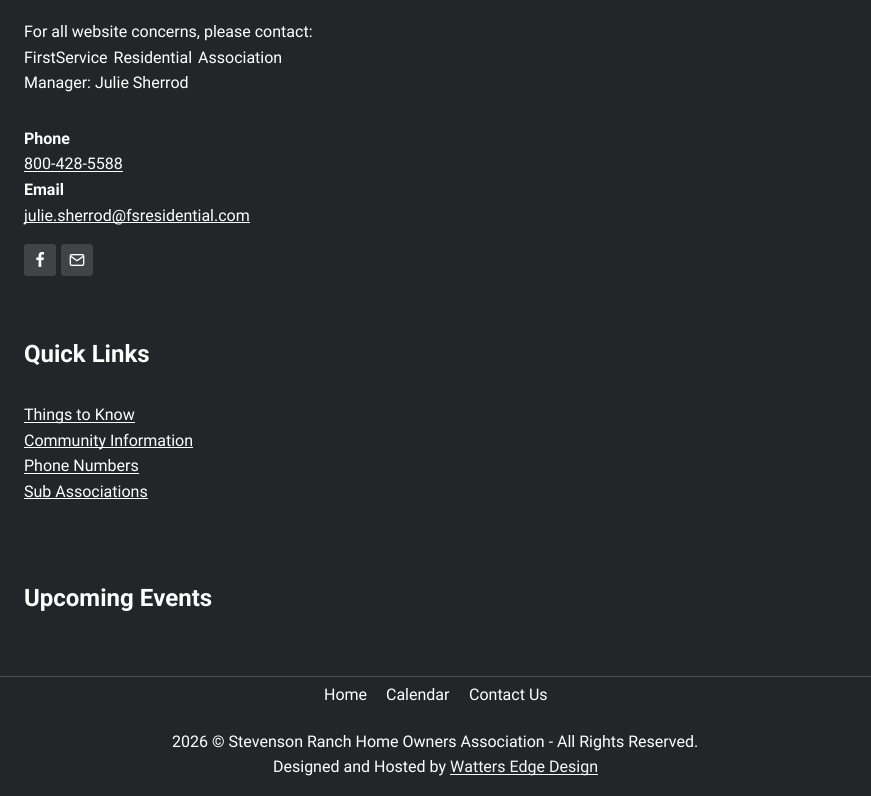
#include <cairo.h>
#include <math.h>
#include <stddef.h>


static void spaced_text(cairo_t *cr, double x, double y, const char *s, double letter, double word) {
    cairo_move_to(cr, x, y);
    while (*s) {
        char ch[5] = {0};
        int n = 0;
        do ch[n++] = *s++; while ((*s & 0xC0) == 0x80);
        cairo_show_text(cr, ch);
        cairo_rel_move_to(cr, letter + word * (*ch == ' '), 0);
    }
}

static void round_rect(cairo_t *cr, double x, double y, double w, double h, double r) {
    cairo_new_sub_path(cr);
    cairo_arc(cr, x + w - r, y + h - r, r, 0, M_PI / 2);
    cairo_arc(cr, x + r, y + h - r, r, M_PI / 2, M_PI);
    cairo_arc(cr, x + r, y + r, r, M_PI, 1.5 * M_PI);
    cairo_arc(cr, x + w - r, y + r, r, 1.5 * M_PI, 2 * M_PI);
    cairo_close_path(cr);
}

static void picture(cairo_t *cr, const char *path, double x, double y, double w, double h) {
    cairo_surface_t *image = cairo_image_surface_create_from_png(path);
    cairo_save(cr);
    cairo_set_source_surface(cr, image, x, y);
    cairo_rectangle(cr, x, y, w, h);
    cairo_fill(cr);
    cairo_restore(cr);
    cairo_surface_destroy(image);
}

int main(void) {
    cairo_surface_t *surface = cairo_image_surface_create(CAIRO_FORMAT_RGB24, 871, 796);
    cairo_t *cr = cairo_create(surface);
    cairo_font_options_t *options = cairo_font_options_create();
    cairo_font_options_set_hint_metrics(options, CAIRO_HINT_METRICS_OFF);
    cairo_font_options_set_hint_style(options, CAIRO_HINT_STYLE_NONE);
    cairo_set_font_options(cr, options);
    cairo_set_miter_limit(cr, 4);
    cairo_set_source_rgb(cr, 0.137, 0.149, 0.161);
    cairo_paint(cr);
    cairo_select_font_face(cr, "Roboto", CAIRO_FONT_SLANT_NORMAL, CAIRO_FONT_WEIGHT_NORMAL);
    cairo_set_font_size(cr, 16);
    cairo_set_source_rgb(cr, 1, 1, 1);
    cairo_move_to(cr, 24, 37);
    cairo_show_text(cr, "For all website concerns, please contact:");
    spaced_text(cr, 24, 63, "FirstService Residential Association", 0, 2);
    cairo_move_to(cr, 24, 88);
    cairo_show_text(cr, "Manager: Julie Sherrod");
    cairo_select_font_face(cr, "Roboto", CAIRO_FONT_SLANT_NORMAL, CAIRO_FONT_WEIGHT_BOLD);
    cairo_move_to(cr, 24, 144);
    cairo_show_text(cr, "Phone");
    cairo_select_font_face(cr, "Roboto", CAIRO_FONT_SLANT_NORMAL, CAIRO_FONT_WEIGHT_NORMAL);
    cairo_move_to(cr, 24, 169);
    cairo_show_text(cr, "800-428-5588");
    cairo_rectangle(cr, 24, 171, 99, 1);
    cairo_fill(cr);
    cairo_select_font_face(cr, "Roboto", CAIRO_FONT_SLANT_NORMAL, CAIRO_FONT_WEIGHT_BOLD);
    cairo_move_to(cr, 24, 195);
    cairo_show_text(cr, "Email");
    cairo_rectangle(cr, 24, 222, 226, 1);
    cairo_fill(cr);
    cairo_select_font_face(cr, "Roboto", CAIRO_FONT_SLANT_NORMAL, CAIRO_FONT_WEIGHT_NORMAL);
    cairo_move_to(cr, 24, 221);
    cairo_show_text(cr, "julie.sherrod@fsresidential.com");
    cairo_set_source_rgb(cr, 0.255, 0.267, 0.278);
    round_rect(cr, 24, 244, 32, 32, 3);
    cairo_fill(cr);
    picture(cr, "img1.png", 36, 252, 8, 15);
    round_rect(cr, 61, 244, 32, 32, 3);
    cairo_fill(cr);
    picture(cr, "img2.png", 69, 254, 16, 12);
    cairo_select_font_face(cr, "Roboto", CAIRO_FONT_SLANT_NORMAL, CAIRO_FONT_WEIGHT_BOLD);
    cairo_set_font_size(cr, 24);
    cairo_set_source_rgb(cr, 1, 1, 1);
    cairo_move_to(cr, 24, 362);
    cairo_show_text(cr, "Quick Links");
    cairo_rectangle(cr, 24, 422, 111, 1);
    cairo_fill(cr);
    cairo_select_font_face(cr, "Roboto", CAIRO_FONT_SLANT_NORMAL, CAIRO_FONT_WEIGHT_NORMAL);
    cairo_set_font_size(cr, 16);
    cairo_move_to(cr, 24, 420);
    cairo_show_text(cr, "Things to Know");
    cairo_rectangle(cr, 24, 447, 169, 1);
    cairo_fill(cr);
    cairo_move_to(cr, 24, 446);
    cairo_show_text(cr, "Community Information");
    cairo_move_to(cr, 24, 471);
    cairo_show_text(cr, "Phone Numbers");
    cairo_rectangle(cr, 24, 473, 115, 1);
    cairo_fill(cr);
    cairo_move_to(cr, 24, 497);
    cairo_show_text(cr, "Sub Associations");
    cairo_rectangle(cr, 24, 498, 124, 1);
    cairo_fill(cr);
    cairo_select_font_face(cr, "Roboto", CAIRO_FONT_SLANT_NORMAL, CAIRO_FONT_WEIGHT_BOLD);
    cairo_set_font_size(cr, 24);
    cairo_move_to(cr, 24, 606);
    cairo_show_text(cr, "Upcoming Events");
    cairo_set_source_rgb(cr, 0.282, 0.298, 0.306);
    cairo_rectangle(cr, 0, 676, 871, 1);
    cairo_fill(cr);
    cairo_select_font_face(cr, "Roboto", CAIRO_FONT_SLANT_NORMAL, CAIRO_FONT_WEIGHT_NORMAL);
    cairo_set_font_size(cr, 16);
    cairo_set_source_rgb(cr, 1, 1, 1);
    cairo_move_to(cr, 324, 700);
    cairo_show_text(cr, "Home");
    cairo_move_to(cr, 386, 700);
    cairo_show_text(cr, "Calendar");
    cairo_move_to(cr, 469, 700);
    cairo_show_text(cr, "Contact Us");
    cairo_move_to(cr, 172, 747);
    cairo_show_text(cr, "2026 © Stevenson Ranch Home Owners Association - All Rights Reserved.");
    cairo_move_to(cr, 273, 772);
    cairo_show_text(cr, "Designed and Hosted by");
    cairo_set_source_rgb(cr, 0.965, 0.965, 0.965);
    cairo_rectangle(cr, 450, 774, 148, 1);
    cairo_fill(cr);
    cairo_move_to(cr, 450, 772);
    cairo_show_text(cr, "Watters Edge Design");
    cairo_surface_write_to_png(surface, "page.png");
    cairo_font_options_destroy(options);
    cairo_destroy(cr);
    cairo_surface_destroy(surface);
    return 0;
}
